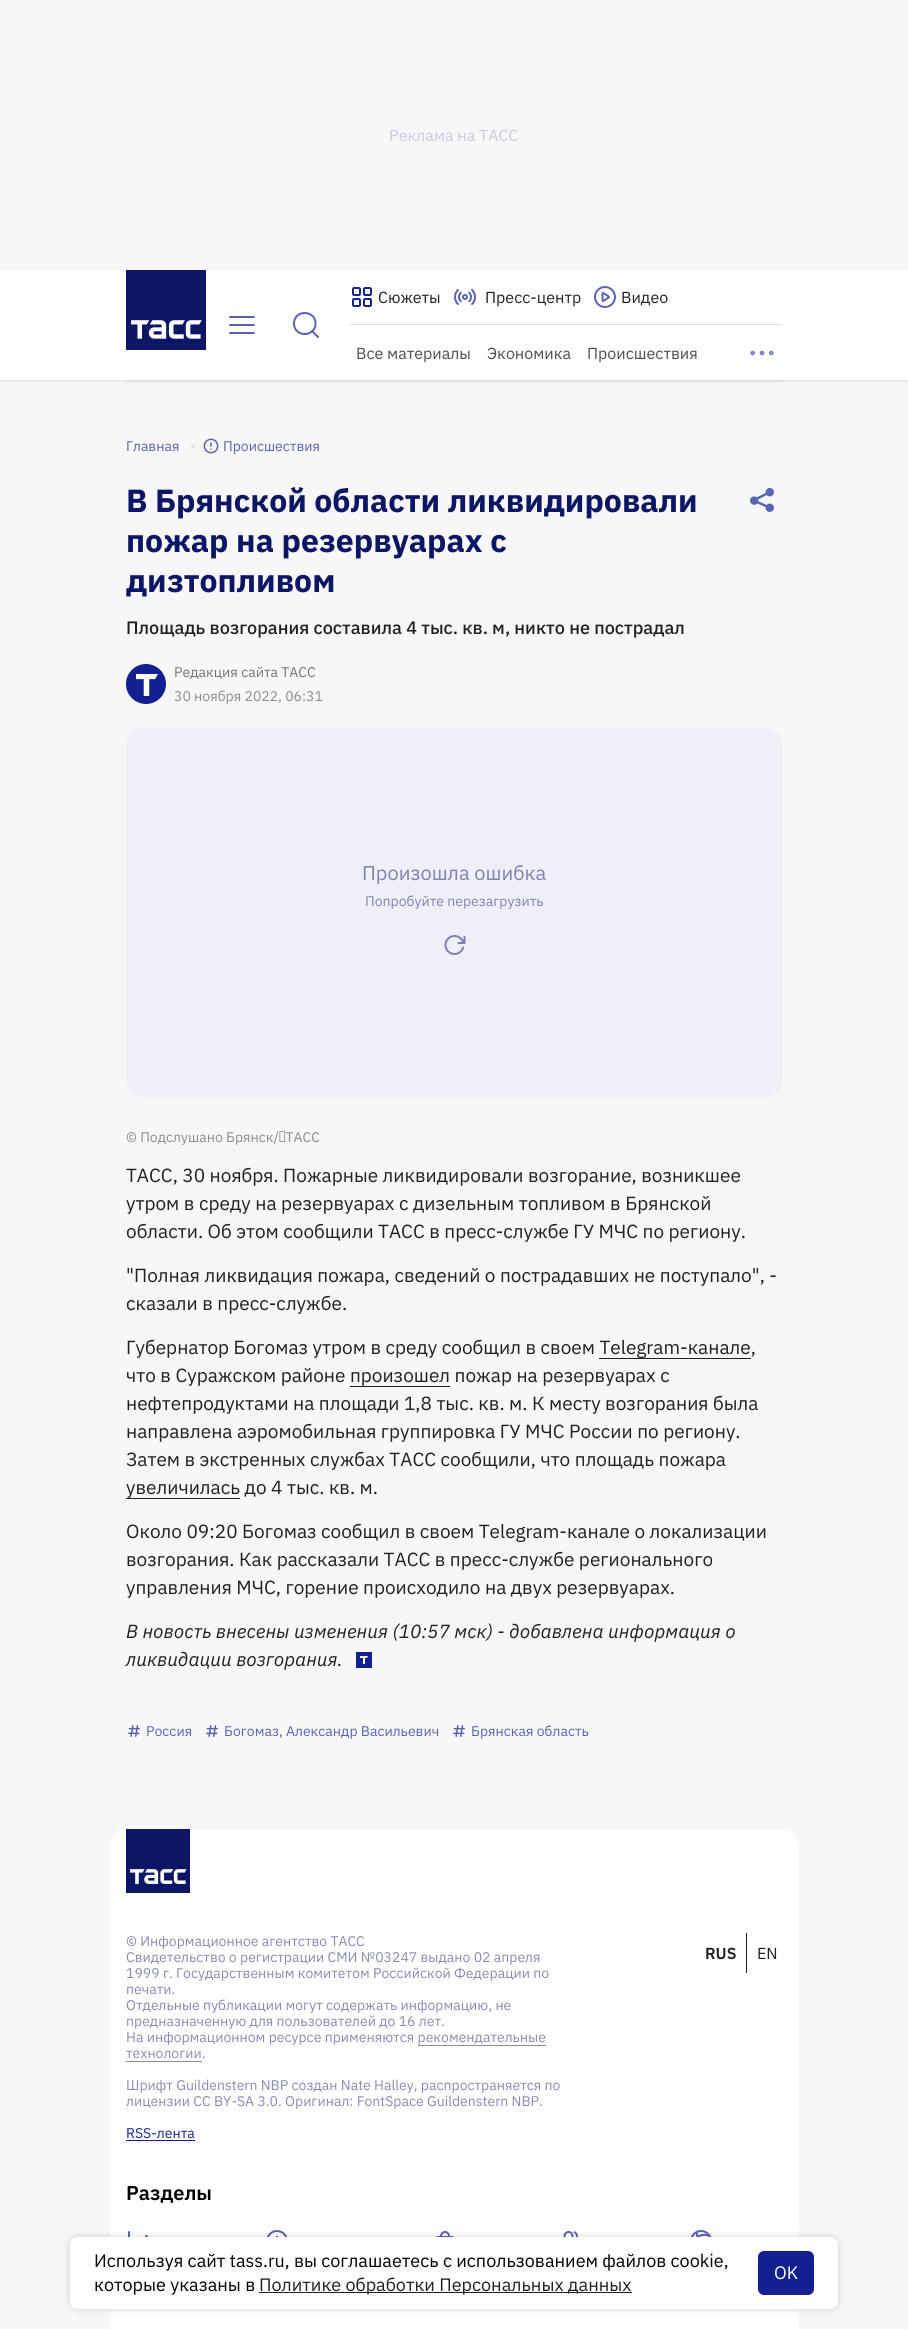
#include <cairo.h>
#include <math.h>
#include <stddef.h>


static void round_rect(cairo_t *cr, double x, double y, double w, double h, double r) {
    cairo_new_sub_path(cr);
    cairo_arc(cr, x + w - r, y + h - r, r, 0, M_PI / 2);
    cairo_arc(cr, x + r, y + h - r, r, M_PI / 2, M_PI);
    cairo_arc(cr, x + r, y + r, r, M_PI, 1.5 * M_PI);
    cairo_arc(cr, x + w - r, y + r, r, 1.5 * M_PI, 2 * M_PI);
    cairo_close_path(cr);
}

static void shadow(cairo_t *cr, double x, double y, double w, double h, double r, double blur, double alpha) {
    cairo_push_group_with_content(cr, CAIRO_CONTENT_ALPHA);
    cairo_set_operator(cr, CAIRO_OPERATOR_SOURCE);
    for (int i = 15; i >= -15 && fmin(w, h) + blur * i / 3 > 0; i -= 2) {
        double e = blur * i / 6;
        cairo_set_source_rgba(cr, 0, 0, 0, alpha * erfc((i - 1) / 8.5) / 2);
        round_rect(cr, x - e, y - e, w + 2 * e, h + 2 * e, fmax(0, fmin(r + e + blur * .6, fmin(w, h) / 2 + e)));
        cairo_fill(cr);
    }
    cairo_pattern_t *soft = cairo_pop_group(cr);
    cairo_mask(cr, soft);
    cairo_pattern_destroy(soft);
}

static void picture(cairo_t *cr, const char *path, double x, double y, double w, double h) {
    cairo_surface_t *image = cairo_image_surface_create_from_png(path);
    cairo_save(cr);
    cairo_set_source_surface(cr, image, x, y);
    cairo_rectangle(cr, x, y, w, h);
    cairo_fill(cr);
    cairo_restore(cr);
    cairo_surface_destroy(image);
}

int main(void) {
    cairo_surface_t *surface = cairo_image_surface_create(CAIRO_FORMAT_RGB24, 908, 2329);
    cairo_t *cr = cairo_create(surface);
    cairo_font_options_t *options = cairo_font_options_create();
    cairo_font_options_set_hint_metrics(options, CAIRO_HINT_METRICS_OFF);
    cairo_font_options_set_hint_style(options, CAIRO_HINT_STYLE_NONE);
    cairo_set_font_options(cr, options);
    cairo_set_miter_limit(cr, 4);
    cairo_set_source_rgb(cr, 0.965, 0.965, 0.965);
    cairo_paint(cr);
    cairo_set_source_rgb(cr, 0, 0, 0);
    shadow(cr, 126, 270, 656, 110, 0, 2, 0.16);
    shadow(cr, 0, 270, 908, 110, 0, 2, 0.16);
    cairo_set_source_rgb(cr, 0.965, 0.965, 0.965);
    cairo_rectangle(cr, 0, 266, 908, 4);
    cairo_fill(cr);
    cairo_select_font_face(cr, "IBM Plex Sans", CAIRO_FONT_SLANT_NORMAL, CAIRO_FONT_WEIGHT_NORMAL);
    cairo_set_font_size(cr, 16);
    cairo_set_source_rgb(cr, 0.784, 0.796, 0.886);
    cairo_move_to(cr, 389, 141);
    cairo_show_text(cr, "Реклама на ТАСС");
    cairo_set_source_rgb(cr, 1, 1, 1);
    cairo_rectangle(cr, 0, 270, 908, 110);
    cairo_fill(cr);
    cairo_set_source_rgb(cr, 0.051, 0.086, 0.396);
    cairo_rectangle(cr, 126, 270, 80, 80);
    cairo_fill(cr);
    picture(cr, "img1.png", 131, 320, 71, 19);
    cairo_set_source_rgb(cr, 0.867, 0.867, 0.886);
    cairo_rectangle(cr, 350, 324, 432, 1);
    cairo_fill(cr);
    picture(cr, "img2.png", 352, 287, 20, 20);
    cairo_set_source_rgb(cr, 0.125, 0.125, 0.125);
    cairo_move_to(cr, 378, 303);
    cairo_show_text(cr, "Сюжеты");
    picture(cr, "img3.png", 454, 289, 22, 16);
    cairo_move_to(cr, 485, 303);
    cairo_show_text(cr, "Пресс-центр");
    picture(cr, "img4.png", 594, 286, 22, 22);
    cairo_move_to(cr, 621, 303);
    cairo_show_text(cr, "Видео");
    picture(cr, "img5.png", 229, 316, 26, 18);
    cairo_new_path(cr);
    cairo_move_to(cr, 318, 337);
    cairo_line_to(cr, 312, 331);
    cairo_move_to(cr, 315.5, 323.5);
    cairo_curve_to(cr, 315.5, 337.5, 294, 337.5, 294, 323.5);
    cairo_curve_to(cr, 294, 309.5, 315.5, 309.5, 315.5, 323.5);
    cairo_set_source_rgb(cr, 0.349, 0.388, 0.694);
    cairo_set_line_cap(cr, CAIRO_LINE_CAP_ROUND);
    cairo_set_line_join(cr, CAIRO_LINE_JOIN_ROUND);
    cairo_stroke(cr);
    cairo_set_source_rgb(cr, 0.302, 0.302, 0.302);
    cairo_move_to(cr, 356, 359);
    cairo_show_text(cr, "Все материалы");
    cairo_move_to(cr, 487, 359);
    cairo_show_text(cr, "Экономика");
    cairo_move_to(cr, 587, 359);
    cairo_show_text(cr, "Происшествия");
    picture(cr, "img6.png", 750, 350, 24, 6);
    cairo_set_font_size(cr, 14);
    cairo_set_source_rgb(cr, 0.349, 0.388, 0.694);
    cairo_move_to(cr, 126, 451);
    cairo_show_text(cr, "Главная");
    cairo_set_source_rgb(cr, 0.902, 0.902, 0.902);
    round_rect(cr, 191, 444, 4, 4, 1);
    cairo_fill(cr);
    picture(cr, "img7.png", 203, 438, 16, 16);
    cairo_set_source_rgb(cr, 0.349, 0.388, 0.694);
    cairo_move_to(cr, 223, 451);
    cairo_show_text(cr, "Происшествия");
    cairo_select_font_face(cr, "IBM Plex Sans", CAIRO_FONT_SLANT_NORMAL, CAIRO_FONT_WEIGHT_BOLD);
    cairo_set_font_size(cr, 32);
    cairo_set_source_rgb(cr, 0.051, 0.086, 0.396);
    cairo_move_to(cr, 126, 512);
    cairo_show_text(cr, "В Брянской области ликвидировали");
    cairo_move_to(cr, 126, 552);
    cairo_show_text(cr, "пожар на резервуарах с");
    cairo_move_to(cr, 126, 592);
    cairo_show_text(cr, "дизтопливом");
    picture(cr, "img8.png", 750, 488, 24, 24);
    cairo_select_font_face(cr, "IBM Plex Sans Medium", CAIRO_FONT_SLANT_NORMAL, CAIRO_FONT_WEIGHT_NORMAL);
    cairo_set_font_size(cr, 18);
    cairo_set_source_rgb(cr, 0.125, 0.125, 0.125);
    cairo_move_to(cr, 126, 634);
    cairo_show_text(cr, "Площадь возгорания составила 4 тыс. кв. м, никто не пострадал");
    cairo_set_source_rgb(cr, 0.071, 0.125, 0.565);
    cairo_new_path(cr);
    cairo_arc(cr, 146, 684, 20, 0, 2 * M_PI);
    cairo_fill(cr);
    picture(cr, "img9.png", 136, 674, 22, 22);
    cairo_select_font_face(cr, "IBM Plex Sans", CAIRO_FONT_SLANT_NORMAL, CAIRO_FONT_WEIGHT_NORMAL);
    cairo_set_font_size(cr, 14);
    cairo_set_source_rgb(cr, 0.447, 0.447, 0.447);
    cairo_move_to(cr, 174, 677);
    cairo_show_text(cr, "Редакция сайта ТАСС");
    cairo_set_source_rgb(cr, 0.545, 0.545, 0.545);
    cairo_move_to(cr, 174, 701);
    cairo_show_text(cr, "30 ноября 2022, 06:31");
    cairo_set_source_rgb(cr, 0.933, 0.937, 0.969);
    round_rect(cr, 126, 728, 656, 369, 16);
    cairo_fill(cr);
    cairo_set_font_size(cr, 20);
    cairo_set_source_rgb(cr, 0.494, 0.514, 0.682);
    cairo_move_to(cr, 362, 880);
    cairo_show_text(cr, "Произошла ошибка");
    cairo_set_font_size(cr, 14);
    cairo_move_to(cr, 365, 906);
    cairo_show_text(cr, "Попробуйте перезагрузить");
    picture(cr, "img10.png", 444, 935, 22, 20);
    cairo_set_source_rgb(cr, 0.545, 0.545, 0.545);
    cairo_move_to(cr, 126, 1142);
    cairo_show_text(cr, "© Подслушано Брянск/ ТАСС");
    cairo_set_font_size(cr, 19);
    cairo_set_source_rgb(cr, 0.125, 0.125, 0.125);
    cairo_move_to(cr, 126, 1182);
    cairo_show_text(cr, "ТАСС, 30 ноября. Пожарные ликвидировали возгорание, возникшее");
    cairo_move_to(cr, 126, 1210);
    cairo_show_text(cr, "утром в среду на резервуарах с дизельным топливом в Брянской");
    cairo_move_to(cr, 126, 1238);
    cairo_show_text(cr, "области. Об этом сообщили ТАСС в пресс-службе ГУ МЧС по региону.");
    cairo_move_to(cr, 126, 1282);
    cairo_show_text(cr, "\"Полная ликвидация пожара, сведений о пострадавших не поступало\", -");
    cairo_move_to(cr, 126, 1310);
    cairo_show_text(cr, "сказали в пресс-службе.");
    cairo_move_to(cr, 126, 1354);
    cairo_show_text(cr, "Губернатор Богомаз утром в среду сообщил в своем Telegram-канале,");
    cairo_rectangle(cr, 599, 1358, 152, 1);
    cairo_fill(cr);
    cairo_move_to(cr, 126, 1382);
    cairo_show_text(cr, "что в Суражском районе произошел пожар на резервуарах с");
    cairo_rectangle(cr, 350, 1386, 100, 1);
    cairo_fill(cr);
    cairo_move_to(cr, 126, 1410);
    cairo_show_text(cr, "нефтепродуктами на площади 1,8 тыс. кв. м. К месту возгорания была");
    cairo_move_to(cr, 126, 1438);
    cairo_show_text(cr, "направлена аэромобильная группировка ГУ МЧС России по региону.");
    cairo_move_to(cr, 126, 1466);
    cairo_show_text(cr, "Затем в экстренных службах ТАСС сообщили, что площадь пожара");
    cairo_move_to(cr, 126, 1494);
    cairo_show_text(cr, "увеличилась до 4 тыс. кв. м.");
    cairo_rectangle(cr, 126, 1498, 114, 1);
    cairo_fill(cr);
    cairo_move_to(cr, 126, 1538);
    cairo_show_text(cr, "Около 09:20 Богомаз сообщил в своем Telegram-канале о локализации");
    cairo_move_to(cr, 126, 1566);
    cairo_show_text(cr, "возгорания. Как рассказали ТАСС в пресс-службе регионального");
    cairo_move_to(cr, 126, 1594);
    cairo_show_text(cr, "управления МЧС, горение происходило на двух резервуарах.");
    cairo_select_font_face(cr, "IBM Plex Sans", CAIRO_FONT_SLANT_ITALIC, CAIRO_FONT_WEIGHT_NORMAL);
    cairo_move_to(cr, 126, 1638);
    cairo_show_text(cr, "В новость внесены изменения (10:57 мск) - добавлена информация о");
    cairo_move_to(cr, 126, 1666);
    cairo_show_text(cr, "ликвидации возгорания.");
    picture(cr, "img11.png", 356, 1652, 16, 16);
    picture(cr, "img12.png", 128, 1725, 12, 12);
    cairo_select_font_face(cr, "IBM Plex Sans", CAIRO_FONT_SLANT_NORMAL, CAIRO_FONT_WEIGHT_NORMAL);
    cairo_set_font_size(cr, 14);
    cairo_set_source_rgb(cr, 0.349, 0.388, 0.694);
    cairo_move_to(cr, 146, 1736);
    cairo_show_text(cr, "Россия");
    picture(cr, "img12.png", 206, 1725, 12, 12);
    cairo_move_to(cr, 224, 1736);
    cairo_show_text(cr, "Богомаз, Александр Васильевич");
    picture(cr, "img12.png", 453, 1725, 12, 12);
    cairo_move_to(cr, 471, 1736);
    cairo_show_text(cr, "Брянская область");
    cairo_set_source_rgb(cr, 1, 1, 1);
    cairo_new_path(cr);
    cairo_move_to(cr, 126, 1829);
    cairo_line_to(cr, 782, 1829);
    cairo_curve_to(cr, 791, 1829, 798, 1836, 798, 1845);
    cairo_line_to(cr, 798, 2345);
    cairo_line_to(cr, 110, 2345);
    cairo_line_to(cr, 110, 1845);
    cairo_curve_to(cr, 110, 1836, 117, 1829, 126, 1829);
    cairo_close_path(cr);
    cairo_fill(cr);
    picture(cr, "img13.png", 126, 1829, 64, 64);
    cairo_set_source_rgb(cr, 0.525, 0.545, 0.698);
    cairo_move_to(cr, 126, 1946);
    cairo_show_text(cr, "© Информационное агентство ТАСС");
    cairo_move_to(cr, 126, 1962);
    cairo_show_text(cr, "Свидетельство о регистрации СМИ №03247 выдано 02 апреля");
    cairo_move_to(cr, 126, 1978);
    cairo_show_text(cr, "1999 г. Государственным комитетом Российской Федерации по");
    cairo_move_to(cr, 126, 1994);
    cairo_show_text(cr, "печати.");
    cairo_move_to(cr, 126, 2010);
    cairo_show_text(cr, "Отдельные публикации могут содержать информацию, не");
    cairo_move_to(cr, 126, 2026);
    cairo_show_text(cr, "предназначенную для пользователей до 16 лет.");
    cairo_move_to(cr, 126, 2042);
    cairo_show_text(cr, "На информационном ресурсе применяются рекомендательные");
    cairo_move_to(cr, 126, 2058);
    cairo_show_text(cr, "технологии.");
    cairo_save(cr);
    cairo_rectangle(cr, 418, 2028, 128, 18);
    cairo_clip(cr);
    cairo_set_fill_rule(cr, CAIRO_FILL_RULE_EVEN_ODD);
    cairo_new_path(cr);
    cairo_move_to(cr, 319, 1929);
    cairo_line_to(cr, 645, 1929);
    cairo_line_to(cr, 645, 2145);
    cairo_line_to(cr, 319, 2145);
    cairo_close_path(cr);
    cairo_move_to(cr, 418, 2025);
    cairo_line_to(cr, 546, 2025);
    cairo_curve_to(cr, 547, 2025, 547, 2025, 547, 2026);
    cairo_line_to(cr, 547, 2044);
    cairo_curve_to(cr, 547, 2045, 547, 2045, 546, 2045);
    cairo_line_to(cr, 418, 2045);
    cairo_curve_to(cr, 417, 2045, 417, 2045, 417, 2044);
    cairo_line_to(cr, 417, 2026);
    cairo_curve_to(cr, 417, 2025, 417, 2025, 418, 2025);
    cairo_close_path(cr);
    cairo_fill(cr);
    cairo_restore(cr);
    cairo_save(cr);
    cairo_rectangle(cr, 126, 2044, 76, 18);
    cairo_clip(cr);
    cairo_set_fill_rule(cr, CAIRO_FILL_RULE_EVEN_ODD);
    cairo_new_path(cr);
    cairo_move_to(cr, 27, 1945);
    cairo_line_to(cr, 301, 1945);
    cairo_line_to(cr, 301, 2161);
    cairo_line_to(cr, 27, 2161);
    cairo_close_path(cr);
    cairo_move_to(cr, 126, 2041);
    cairo_line_to(cr, 202, 2041);
    cairo_curve_to(cr, 203, 2041, 203, 2041, 203, 2042);
    cairo_line_to(cr, 203, 2060);
    cairo_curve_to(cr, 203, 2061, 203, 2061, 202, 2061);
    cairo_line_to(cr, 126, 2061);
    cairo_curve_to(cr, 125, 2061, 125, 2061, 125, 2060);
    cairo_line_to(cr, 125, 2042);
    cairo_curve_to(cr, 125, 2041, 125, 2041, 126, 2041);
    cairo_close_path(cr);
    cairo_fill(cr);
    cairo_restore(cr);
    cairo_move_to(cr, 126, 2090);
    cairo_show_text(cr, "Шрифт Guildenstern NBP создан Nate Halley, распространяется по");
    cairo_move_to(cr, 126, 2106);
    cairo_show_text(cr, "лицензии CC BY-SA 3.0. Оригинал: FontSpace Guildenstern NBP.");
    cairo_save(cr);
    cairo_rectangle(cr, 126, 2125, 69, 16);
    cairo_clip(cr);
    cairo_set_source_rgb(cr, 0.071, 0.125, 0.565);
    cairo_set_fill_rule(cr, CAIRO_FILL_RULE_EVEN_ODD);
    cairo_new_path(cr);
    cairo_move_to(cr, 27, 2026);
    cairo_line_to(cr, 294, 2026);
    cairo_line_to(cr, 294, 2240);
    cairo_line_to(cr, 27, 2240);
    cairo_close_path(cr);
    cairo_move_to(cr, 126, 2122);
    cairo_line_to(cr, 195, 2122);
    cairo_curve_to(cr, 196, 2122, 196, 2122, 196, 2123);
    cairo_line_to(cr, 196, 2139);
    cairo_curve_to(cr, 196, 2140, 196, 2140, 195, 2140);
    cairo_line_to(cr, 126, 2140);
    cairo_curve_to(cr, 125, 2140, 125, 2140, 125, 2139);
    cairo_line_to(cr, 125, 2123);
    cairo_curve_to(cr, 125, 2122, 125, 2122, 126, 2122);
    cairo_close_path(cr);
    cairo_fill(cr);
    cairo_restore(cr);
    cairo_set_source_rgb(cr, 0.071, 0.125, 0.565);
    cairo_move_to(cr, 126, 2138);
    cairo_show_text(cr, "RSS-лента");
    cairo_select_font_face(cr, "IBM Plex Sans SemiBold", CAIRO_FONT_SLANT_NORMAL, CAIRO_FONT_WEIGHT_NORMAL);
    cairo_set_font_size(cr, 16);
    cairo_set_source_rgb(cr, 0.125, 0.125, 0.125);
    cairo_move_to(cr, 705, 1959);
    cairo_show_text(cr, "RUS");
    cairo_rectangle(cr, 746, 1933, 1, 40);
    cairo_fill(cr);
    cairo_select_font_face(cr, "IBM Plex Sans", CAIRO_FONT_SLANT_NORMAL, CAIRO_FONT_WEIGHT_NORMAL);
    cairo_move_to(cr, 757, 1959);
    cairo_show_text(cr, "EN");
    cairo_select_font_face(cr, "IBM Plex Sans SemiBold", CAIRO_FONT_SLANT_NORMAL, CAIRO_FONT_WEIGHT_NORMAL);
    cairo_set_font_size(cr, 20);
    cairo_set_source_rgb(cr, 0, 0, 0);
    cairo_move_to(cr, 126, 2200);
    cairo_show_text(cr, "Разделы");
    picture(cr, "img14.png", 128, 2231, 20, 6);
    picture(cr, "img15.png", 266, 2230, 22, 7);
    picture(cr, "img16.png", 435, 2231, 20, 6);
    picture(cr, "img17.png", 563, 2231, 15, 6);
    picture(cr, "img18.png", 690, 2230, 22, 7);
    cairo_set_source_rgb(cr, 0, 0, 0);
    shadow(cr, 70, 2237, 768, 72, 8, 4, 0.16);
    cairo_set_source_rgb(cr, 1, 1, 1);
    round_rect(cr, 70, 2237, 768, 72, 8);
    cairo_fill(cr);
    cairo_select_font_face(cr, "IBM Plex Sans", CAIRO_FONT_SLANT_NORMAL, CAIRO_FONT_WEIGHT_NORMAL);
    cairo_set_font_size(cr, 18);
    cairo_set_source_rgb(cr, 0, 0, 0);
    cairo_move_to(cr, 94, 2267);
    cairo_show_text(cr, "Используя сайт tass.ru, вы соглашаетесь с использованием файлов cookie,");
    cairo_move_to(cr, 94, 2291);
    cairo_show_text(cr, "которые указаны в");
    cairo_set_source_rgb(cr, 0.125, 0.125, 0.125);
    cairo_rectangle(cr, 259, 2292, 373, 1);
    cairo_fill(cr);
    cairo_move_to(cr, 259, 2291);
    cairo_show_text(cr, "Политике обработки Персональных данных");
    cairo_set_source_rgb(cr, 0.071, 0.125, 0.565);
    round_rect(cr, 758, 2251, 56, 44, 6);
    cairo_fill(cr);
    cairo_set_source_rgb(cr, 1, 1, 1);
    cairo_move_to(cr, 774, 2279);
    cairo_show_text(cr, "OK");
    cairo_surface_write_to_png(surface, "page.png");
    cairo_font_options_destroy(options);
    cairo_destroy(cr);
    cairo_surface_destroy(surface);
    return 0;
}
